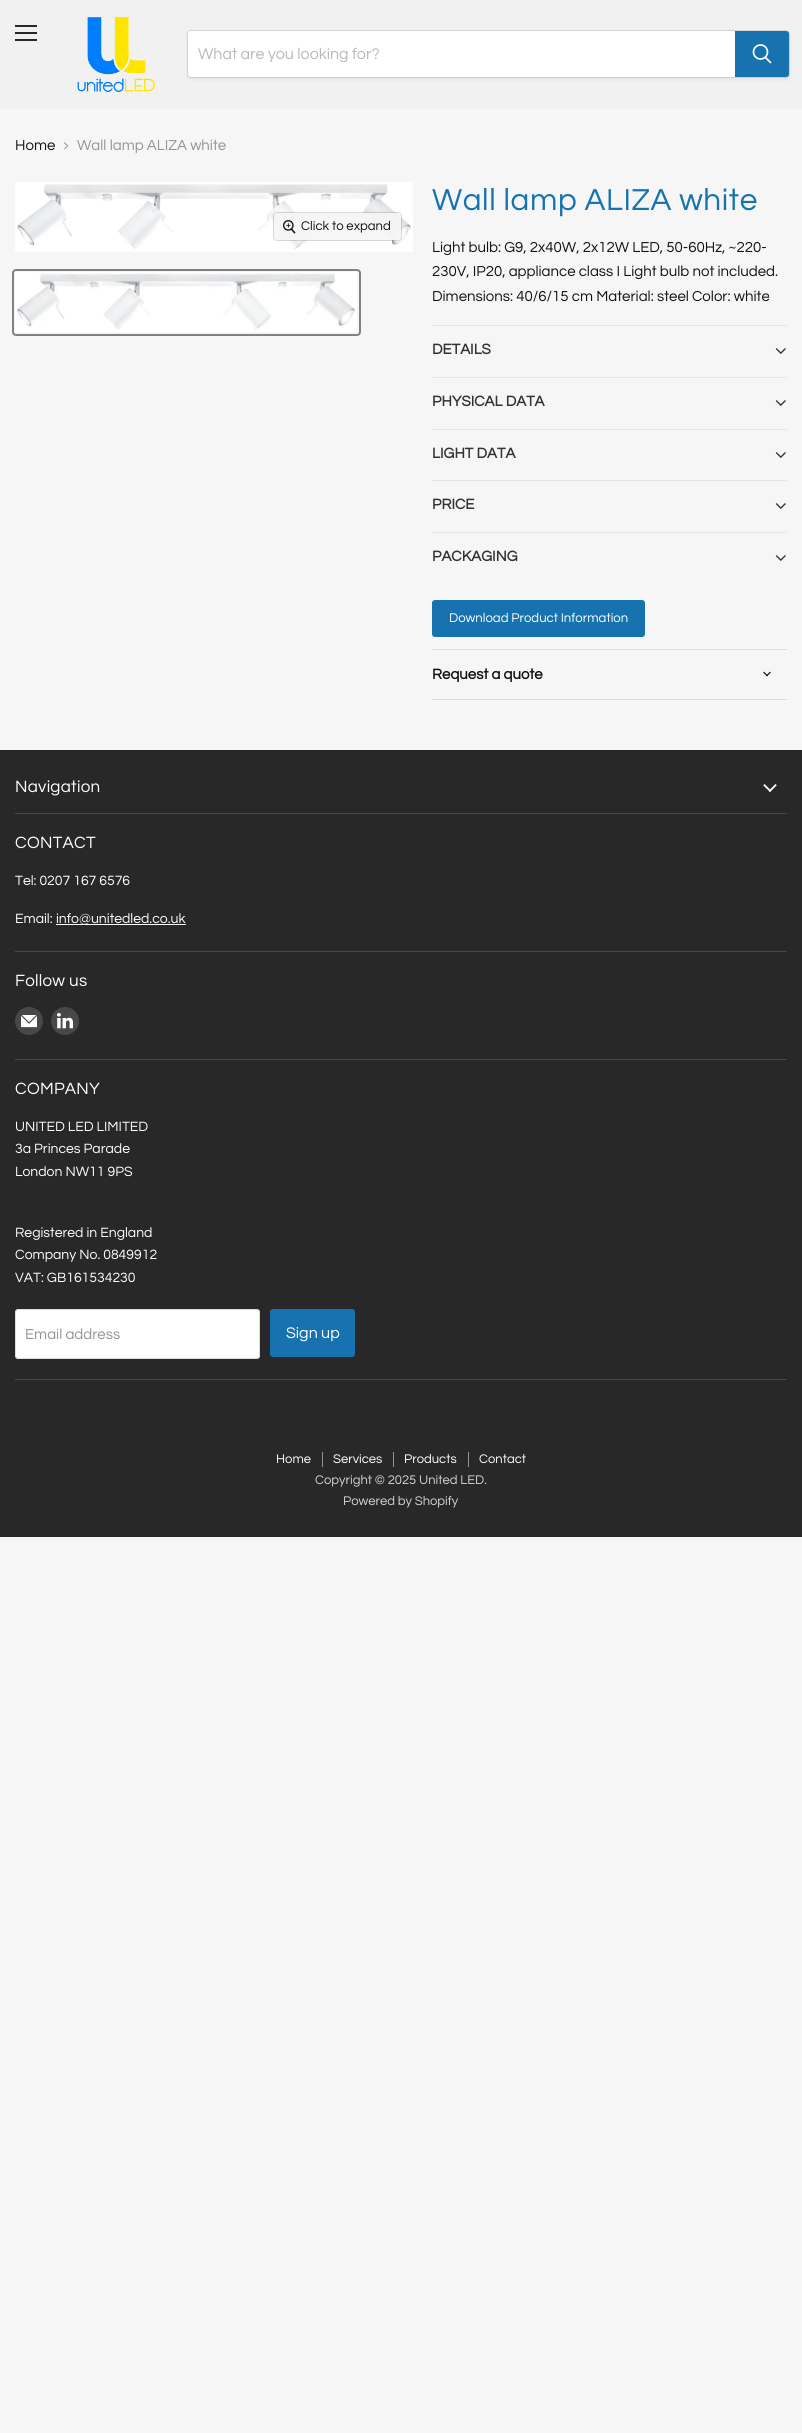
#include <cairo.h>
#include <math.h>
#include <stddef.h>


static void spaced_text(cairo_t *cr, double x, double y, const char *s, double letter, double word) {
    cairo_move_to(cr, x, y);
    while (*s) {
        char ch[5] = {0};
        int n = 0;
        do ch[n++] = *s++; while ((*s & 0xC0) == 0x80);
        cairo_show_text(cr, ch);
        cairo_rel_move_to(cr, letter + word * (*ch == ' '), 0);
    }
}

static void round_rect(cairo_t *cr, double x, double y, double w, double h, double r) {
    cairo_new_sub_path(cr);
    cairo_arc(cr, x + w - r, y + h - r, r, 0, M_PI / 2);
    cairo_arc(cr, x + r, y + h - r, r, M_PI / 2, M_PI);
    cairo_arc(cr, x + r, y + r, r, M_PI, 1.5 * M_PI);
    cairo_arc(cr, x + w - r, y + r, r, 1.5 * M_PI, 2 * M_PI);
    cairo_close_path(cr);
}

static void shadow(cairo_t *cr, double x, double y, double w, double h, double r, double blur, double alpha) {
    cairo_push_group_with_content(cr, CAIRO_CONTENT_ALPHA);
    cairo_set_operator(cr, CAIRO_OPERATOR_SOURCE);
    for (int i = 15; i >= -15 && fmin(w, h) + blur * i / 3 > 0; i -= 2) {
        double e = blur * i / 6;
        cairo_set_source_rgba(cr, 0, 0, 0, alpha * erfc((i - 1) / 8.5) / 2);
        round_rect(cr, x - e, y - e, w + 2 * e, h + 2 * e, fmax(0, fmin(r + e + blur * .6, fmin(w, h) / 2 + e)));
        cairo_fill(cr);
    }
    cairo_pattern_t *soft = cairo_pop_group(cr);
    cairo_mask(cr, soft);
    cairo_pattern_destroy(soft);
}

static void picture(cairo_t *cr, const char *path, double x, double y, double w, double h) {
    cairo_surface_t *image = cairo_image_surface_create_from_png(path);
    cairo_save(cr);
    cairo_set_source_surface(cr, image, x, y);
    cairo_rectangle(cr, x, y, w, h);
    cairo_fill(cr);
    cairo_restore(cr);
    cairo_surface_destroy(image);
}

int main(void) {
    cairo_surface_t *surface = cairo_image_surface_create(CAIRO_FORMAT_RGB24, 802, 2433);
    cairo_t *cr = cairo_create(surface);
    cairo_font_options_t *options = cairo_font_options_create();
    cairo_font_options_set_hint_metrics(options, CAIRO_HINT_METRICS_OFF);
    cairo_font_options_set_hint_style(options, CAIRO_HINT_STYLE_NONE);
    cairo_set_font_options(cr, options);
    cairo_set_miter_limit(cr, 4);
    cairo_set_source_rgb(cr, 0.961, 0.961, 0.961);
    cairo_paint(cr);
    cairo_set_source_rgb(cr, 0.945, 0.945, 0.945);
    cairo_rectangle(cr, 0, 0, 802, 109);
    cairo_fill(cr);
    cairo_set_source_rgb(cr, 0.157, 0.157, 0.157);
    cairo_rectangle(cr, 15, 25, 22, 2);
    cairo_fill(cr);
    cairo_rectangle(cr, 15, 32, 22, 2);
    cairo_fill(cr);
    cairo_rectangle(cr, 15, 39, 22, 2);
    cairo_fill(cr);
    picture(cr, "img1.png", 77, 17, 78, 75);
    cairo_set_source_rgb(cr, 0.482, 0.482, 0.482);
    shadow(cr, 187, 32, 603, 48, 4, 1.5, 0.11);
    round_rect(cr, 187.5, 30.5, 602, 47, 3.5);
    cairo_set_source_rgba(cr, 0.482, 0.482, 0.482, 0.2);
    cairo_set_line_width(cr, 1);
    cairo_stroke(cr);
    cairo_set_source_rgb(cr, 1, 1, 1);
    cairo_new_path(cr);
    cairo_move_to(cr, 191, 31);
    cairo_line_to(cr, 735, 31);
    cairo_line_to(cr, 735, 77);
    cairo_line_to(cr, 191, 77);
    cairo_curve_to(cr, 189.5, 77, 188, 75.5, 188, 74);
    cairo_line_to(cr, 188, 34);
    cairo_curve_to(cr, 188, 32.5, 189.5, 31, 191, 31);
    cairo_close_path(cr);
    cairo_fill(cr);
    cairo_save(cr);
    cairo_rectangle(cr, 198, 46, 527, 16);
    cairo_clip(cr);
    cairo_select_font_face(cr, "Questrial", CAIRO_FONT_SLANT_NORMAL, CAIRO_FONT_WEIGHT_NORMAL);
    cairo_set_font_size(cr, 16);
    cairo_set_source_rgb(cr, 0.722, 0.722, 0.722);
    cairo_move_to(cr, 198, 59);
    cairo_show_text(cr, "What are you looking for?");
    cairo_restore(cr);
    cairo_set_source_rgb(cr, 0.09, 0.451, 0.69);
    cairo_new_path(cr);
    cairo_move_to(cr, 735.5, 31.5);
    cairo_line_to(cr, 786, 31.5);
    cairo_curve_to(cr, 787.5, 31.5, 788.5, 32.5, 788.5, 34);
    cairo_line_to(cr, 788.5, 74);
    cairo_curve_to(cr, 788.5, 75.5, 787.5, 76.5, 786, 76.5);
    cairo_line_to(cr, 735.5, 76.5);
    cairo_close_path(cr);
    cairo_fill_preserve(cr);
    cairo_stroke(cr);
    cairo_new_path(cr);
    cairo_move_to(cr, 770.5, 62.5);
    cairo_line_to(cr, 765.5, 57.5);
    cairo_set_source_rgb(cr, 1, 1, 1);
    cairo_set_line_width(cr, 1.7);
    cairo_set_line_cap(cr, CAIRO_LINE_CAP_ROUND);
    cairo_stroke(cr);
    cairo_arc(cr, 760.5, 52, 7, 0, 2 * M_PI);
    cairo_set_line_cap(cr, CAIRO_LINE_CAP_BUTT);
    cairo_stroke(cr);
    cairo_select_font_face(cr, "Questrial", CAIRO_FONT_SLANT_NORMAL, CAIRO_FONT_WEIGHT_NORMAL);
    cairo_set_font_size(cr, 15);
    cairo_set_source_rgb(cr, 0.071, 0.071, 0.071);
    cairo_move_to(cr, 15, 150);
    cairo_show_text(cr, "Home");
    picture(cr, "img2.png", 64, 142, 5, 8);
    cairo_set_source_rgb(cr, 0.58, 0.58, 0.58);
    cairo_move_to(cr, 77, 150);
    cairo_show_text(cr, "Wall lamp ALIZA white");
    picture(cr, "img3.png", 15, 182, 398, 70);
    round_rect(cr, 273.5, 212.5, 128, 28, 3.5);
    cairo_set_source_rgba(cr, 0, 0, 0, 0.15);
    cairo_set_line_width(cr, 1);
    cairo_stroke(cr);
    cairo_set_source_rgba(cr, 0.961, 0.961, 0.961, 0.9);
    round_rect(cr, 274, 213, 127, 27, 3);
    cairo_fill(cr);
    picture(cr, "img4.png", 283, 220, 13, 14);
    cairo_set_font_size(cr, 13.1);
    cairo_set_source_rgb(cr, 0.071, 0.071, 0.071);
    cairo_move_to(cr, 301, 230);
    cairo_show_text(cr, "Click to expand");
    round_rect(cr, 13, 270, 347, 65, 3);
    cairo_set_source_rgb(cr, 0.506, 0.506, 0.506);
    cairo_set_line_width(cr, 2);
    cairo_stroke(cr);
    picture(cr, "img5.png", 15, 272, 342, 60);
    cairo_set_font_size(cr, 31.5);
    cairo_set_source_rgb(cr, 0.09, 0.451, 0.69);
    spaced_text(cr, 432, 210, "Wall lamp ALIZA white", 0.6, 0);
    cairo_set_font_size(cr, 15);
    cairo_set_source_rgb(cr, 0.071, 0.071, 0.071);
    cairo_move_to(cr, 432, 252);
    cairo_show_text(cr, "Light bulb: G9, 2x40W, 2x12W LED, 50-60Hz, ~220-");
    cairo_move_to(cr, 432, 276);
    cairo_show_text(cr, "230V, IP20, appliance class I Light bulb not included.");
    cairo_move_to(cr, 432, 301);
    cairo_show_text(cr, "Dimensions: 40/6/15 cm Material: steel Color: white");
    cairo_set_source_rgb(cr, 0.898, 0.898, 0.898);
    cairo_rectangle(cr, 432, 325, 355, 1);
    cairo_fill(cr);
    cairo_select_font_face(cr, "Questrial", CAIRO_FONT_SLANT_NORMAL, CAIRO_FONT_WEIGHT_BOLD);
    cairo_set_source_rgb(cr, 0.2, 0.2, 0.2);
    cairo_move_to(cr, 432, 354);
    cairo_show_text(cr, "DETAILS");
    picture(cr, "img6.png", 775, 348, 11, 6);
    cairo_set_source_rgb(cr, 0.898, 0.898, 0.898);
    cairo_rectangle(cr, 432, 377, 355, 1);
    cairo_fill(cr);
    cairo_set_source_rgb(cr, 0.2, 0.2, 0.2);
    cairo_move_to(cr, 432, 406);
    cairo_show_text(cr, "PHYSICAL DATA");
    picture(cr, "img6.png", 775, 400, 11, 6);
    cairo_set_source_rgb(cr, 0.898, 0.898, 0.898);
    cairo_rectangle(cr, 432, 429, 355, 1);
    cairo_fill(cr);
    cairo_set_source_rgb(cr, 0.2, 0.2, 0.2);
    cairo_move_to(cr, 432, 458);
    cairo_show_text(cr, "LIGHT DATA");
    picture(cr, "img6.png", 775, 452, 11, 6);
    cairo_set_source_rgb(cr, 0.898, 0.898, 0.898);
    cairo_rectangle(cr, 432, 480, 355, 1);
    cairo_fill(cr);
    cairo_set_source_rgb(cr, 0.2, 0.2, 0.2);
    cairo_move_to(cr, 432, 509);
    cairo_show_text(cr, "PRICE");
    picture(cr, "img6.png", 775, 503, 11, 6);
    cairo_set_source_rgb(cr, 0.898, 0.898, 0.898);
    cairo_rectangle(cr, 432, 532, 355, 1);
    cairo_fill(cr);
    cairo_set_source_rgb(cr, 0.2, 0.2, 0.2);
    cairo_move_to(cr, 432, 561);
    cairo_show_text(cr, "PACKAGING");
    picture(cr, "img6.png", 775, 555, 11, 6);
    cairo_set_source_rgb(cr, 0.09, 0.451, 0.69);
    round_rect(cr, 432.5, 600.5, 212, 36, 2.5);
    cairo_fill_preserve(cr);
    cairo_set_line_width(cr, 1);
    cairo_stroke(cr);
    cairo_select_font_face(cr, "Questrial", CAIRO_FONT_SLANT_NORMAL, CAIRO_FONT_WEIGHT_NORMAL);
    cairo_set_font_size(cr, 13.1);
    cairo_set_source_rgb(cr, 1, 1, 1);
    cairo_move_to(cr, 449, 622);
    cairo_show_text(cr, "Download Product Information");
    cairo_set_source_rgb(cr, 0.867, 0.867, 0.867);
    cairo_rectangle(cr, 432, 649, 355, 1);
    cairo_fill(cr);
    cairo_rectangle(cr, 432, 699, 355, 1);
    cairo_fill(cr);
    cairo_select_font_face(cr, "Questrial", CAIRO_FONT_SLANT_NORMAL, CAIRO_FONT_WEIGHT_BOLD);
    cairo_set_font_size(cr, 15);
    cairo_set_source_rgb(cr, 0.071, 0.071, 0.071);
    cairo_move_to(cr, 432, 679);
    cairo_show_text(cr, "Request a quote");
    picture(cr, "img7.png", 763, 671, 8, 6);
    cairo_set_source_rgb(cr, 0.157, 0.157, 0.157);
    cairo_rectangle(cr, 0, 750, 802, 787);
    cairo_fill(cr);
    cairo_set_source_rgb(cr, 0.282, 0.282, 0.282);
    cairo_rectangle(cr, 15, 813, 772, 1);
    cairo_fill(cr);
    cairo_select_font_face(cr, "Questrial", CAIRO_FONT_SLANT_NORMAL, CAIRO_FONT_WEIGHT_NORMAL);
    cairo_set_font_size(cr, 17);
    cairo_set_source_rgb(cr, 1, 1, 1);
    spaced_text(cr, 15, 792, "Navigation", 0.25, 0);
    picture(cr, "img8.png", 763, 784, 14, 8);
    cairo_set_source_rgb(cr, 0.282, 0.282, 0.282);
    cairo_rectangle(cr, 15, 951, 772, 1);
    cairo_fill(cr);
    cairo_set_source_rgb(cr, 1, 1, 1);
    spaced_text(cr, 15, 848, "CONTACT", 0.25, 0);
    cairo_set_font_size(cr, 14);
    cairo_move_to(cr, 15, 885);
    cairo_show_text(cr, "Tel: 0207 167 6576");
    cairo_move_to(cr, 15, 923);
    cairo_show_text(cr, "Email:");
    cairo_rectangle(cr, 56, 924, 130, 1);
    cairo_fill(cr);
    cairo_move_to(cr, 56, 923);
    cairo_show_text(cr, "info@unitedled.co.uk");
    cairo_set_source_rgb(cr, 0.282, 0.282, 0.282);
    cairo_rectangle(cr, 15, 1059, 772, 1);
    cairo_fill(cr);
    cairo_set_font_size(cr, 17);
    cairo_set_source_rgb(cr, 1, 1, 1);
    spaced_text(cr, 15, 986, "Follow us", 0.25, 0);
    cairo_set_source_rgb(cr, 0.282, 0.282, 0.282);
    cairo_new_path(cr);
    cairo_arc(cr, 29, 1021, 14, 0, 2 * M_PI);
    cairo_fill(cr);
    picture(cr, "img9.png", 21, 1015, 16, 13);
    cairo_arc(cr, 65, 1021, 14, 0, 2 * M_PI);
    cairo_fill(cr);
    picture(cr, "img10.png", 57, 1013, 16, 16);
    cairo_rectangle(cr, 15, 1379, 772, 1);
    cairo_fill(cr);
    cairo_set_source_rgb(cr, 1, 1, 1);
    spaced_text(cr, 15, 1094, "COMPANY", 0.25, 0);
    cairo_set_font_size(cr, 14);
    cairo_move_to(cr, 15, 1131);
    cairo_show_text(cr, "UNITED LED LIMITED");
    cairo_move_to(cr, 15, 1153);
    cairo_show_text(cr, "3a Princes Parade");
    cairo_move_to(cr, 15, 1176);
    cairo_show_text(cr, "London NW11 9PS");
    cairo_move_to(cr, 15, 1237);
    cairo_show_text(cr, "Registered in England");
    cairo_move_to(cr, 15, 1259);
    cairo_show_text(cr, "Company No. 0849912");
    cairo_move_to(cr, 15, 1282);
    cairo_show_text(cr, "VAT: GB161534230");
    round_rect(cr, 15.5, 1309.5, 244, 49, 2.5);
    cairo_fill_preserve(cr);
    cairo_set_source_rgb(cr, 0.867, 0.867, 0.867);
    cairo_stroke(cr);
    cairo_set_font_size(cr, 15);
    cairo_set_source_rgb(cr, 0.58, 0.58, 0.58);
    cairo_move_to(cr, 25, 1339);
    cairo_show_text(cr, "Email address");
    cairo_set_source_rgb(cr, 0.09, 0.451, 0.69);
    round_rect(cr, 270.5, 1309.5, 84, 47, 2.5);
    cairo_fill_preserve(cr);
    cairo_stroke(cr);
    cairo_set_font_size(cr, 16);
    cairo_set_source_rgb(cr, 1, 1, 1);
    cairo_move_to(cr, 286, 1338);
    cairo_show_text(cr, "Sign up");
    cairo_set_source_rgb(cr, 0.58, 0.58, 0.58);
    cairo_rectangle(cr, 322, 1452, 1, 15);
    cairo_fill(cr);
    cairo_set_font_size(cr, 13);
    cairo_set_source_rgb(cr, 1, 1, 1);
    cairo_move_to(cr, 276, 1463);
    cairo_show_text(cr, "Home");
    cairo_set_source_rgb(cr, 0.58, 0.58, 0.58);
    cairo_rectangle(cr, 393, 1452, 1, 15);
    cairo_fill(cr);
    cairo_set_source_rgb(cr, 1, 1, 1);
    cairo_move_to(cr, 333, 1463);
    cairo_show_text(cr, "Services");
    cairo_set_source_rgb(cr, 0.58, 0.58, 0.58);
    cairo_rectangle(cr, 468, 1452, 1, 15);
    cairo_fill(cr);
    cairo_set_source_rgb(cr, 1, 1, 1);
    cairo_move_to(cr, 404, 1463);
    cairo_show_text(cr, "Products");
    cairo_move_to(cr, 479, 1463);
    cairo_show_text(cr, "Contact");
    cairo_set_source_rgb(cr, 0.831, 0.831, 0.831);
    cairo_move_to(cr, 315, 1484);
    cairo_show_text(cr, "Copyright © 2025 United LED.");
    cairo_move_to(cr, 343, 1505);
    cairo_show_text(cr, "Powered by Shopify");
    cairo_surface_write_to_png(surface, "page.png");
    cairo_font_options_destroy(options);
    cairo_destroy(cr);
    cairo_surface_destroy(surface);
    return 0;
}
